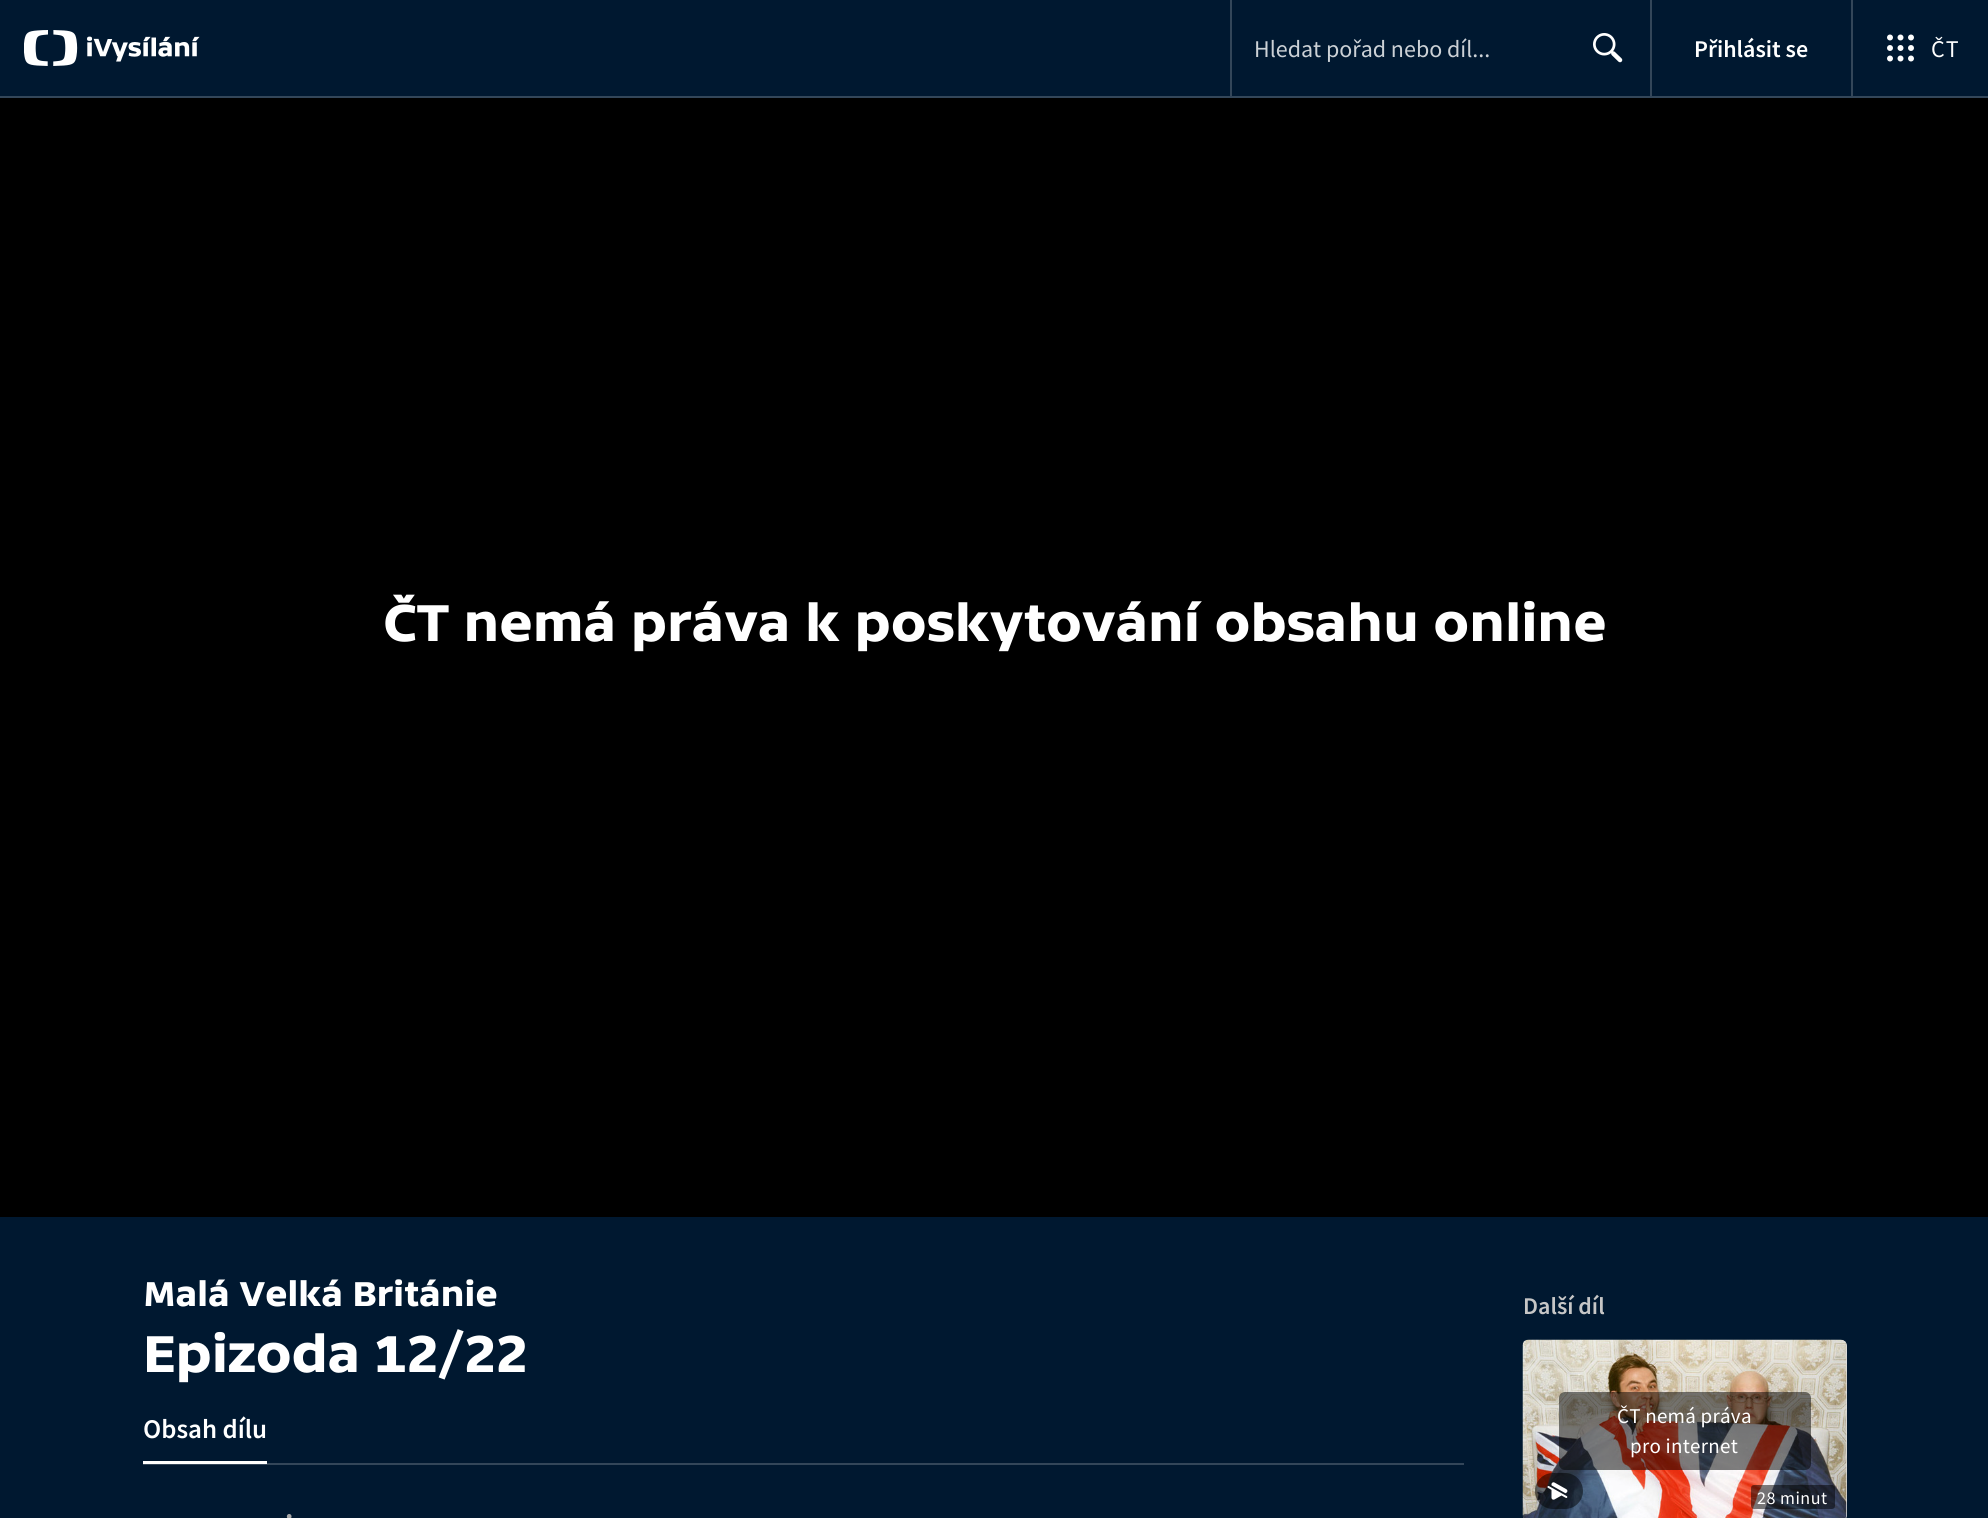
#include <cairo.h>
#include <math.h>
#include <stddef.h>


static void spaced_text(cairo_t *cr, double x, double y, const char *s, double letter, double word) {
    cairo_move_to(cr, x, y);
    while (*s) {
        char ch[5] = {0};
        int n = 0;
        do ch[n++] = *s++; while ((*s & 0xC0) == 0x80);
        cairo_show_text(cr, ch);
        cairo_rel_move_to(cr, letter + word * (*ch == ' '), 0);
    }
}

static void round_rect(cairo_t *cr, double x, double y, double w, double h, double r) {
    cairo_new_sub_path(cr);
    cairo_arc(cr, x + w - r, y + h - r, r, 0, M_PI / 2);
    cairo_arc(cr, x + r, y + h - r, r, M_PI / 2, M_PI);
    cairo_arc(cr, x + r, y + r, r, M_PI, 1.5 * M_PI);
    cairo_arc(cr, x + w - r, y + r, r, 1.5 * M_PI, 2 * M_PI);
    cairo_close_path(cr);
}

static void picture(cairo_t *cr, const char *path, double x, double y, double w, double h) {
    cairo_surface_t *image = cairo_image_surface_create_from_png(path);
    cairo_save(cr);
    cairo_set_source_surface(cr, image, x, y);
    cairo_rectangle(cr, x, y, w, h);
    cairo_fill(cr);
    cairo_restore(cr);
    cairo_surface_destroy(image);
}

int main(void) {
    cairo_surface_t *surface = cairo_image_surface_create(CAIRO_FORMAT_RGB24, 1988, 1518);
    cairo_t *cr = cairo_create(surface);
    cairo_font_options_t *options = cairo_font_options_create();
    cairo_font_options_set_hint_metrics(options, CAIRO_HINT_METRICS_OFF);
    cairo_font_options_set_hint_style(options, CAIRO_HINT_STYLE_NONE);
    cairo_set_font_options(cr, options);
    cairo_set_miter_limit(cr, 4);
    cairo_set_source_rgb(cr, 0, 0.094, 0.188);
    cairo_paint(cr);
    cairo_set_source_rgb(cr, 0.2, 0.275, 0.349);
    cairo_rectangle(cr, 0, 96, 1988, 2);
    cairo_fill(cr);
    picture(cr, "img1.png", 24, 30, 176, 36);
    cairo_rectangle(cr, 1230, 0, 2, 96);
    cairo_fill(cr);
    cairo_select_font_face(cr, "Source Sans Pro", CAIRO_FONT_SLANT_NORMAL, CAIRO_FONT_WEIGHT_NORMAL);
    cairo_set_font_size(cr, 24);
    cairo_set_source_rgb(cr, 0.8, 0.82, 0.839);
    cairo_move_to(cr, 1254, 57);
    cairo_show_text(cr, "Hledat pořad nebo díl...");
    picture(cr, "img2.png", 1593, 33, 30, 30);
    cairo_set_source_rgb(cr, 0.2, 0.275, 0.349);
    cairo_rectangle(cr, 1650, 0, 2, 96);
    cairo_fill(cr);
    cairo_select_font_face(cr, "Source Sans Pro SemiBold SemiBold", CAIRO_FONT_SLANT_NORMAL, CAIRO_FONT_WEIGHT_NORMAL);
    cairo_set_source_rgb(cr, 1, 1, 1);
    cairo_move_to(cr, 1694, 57);
    cairo_show_text(cr, "Přihlásit se");
    cairo_set_source_rgb(cr, 0.2, 0.275, 0.349);
    cairo_rectangle(cr, 1851, 0, 2, 96);
    cairo_fill(cr);
    picture(cr, "img3.png", 1887, 34, 27, 28);
    cairo_select_font_face(cr, "Source Sans Pro", CAIRO_FONT_SLANT_NORMAL, CAIRO_FONT_WEIGHT_NORMAL);
    cairo_set_source_rgb(cr, 1, 1, 1);
    spaced_text(cr, 1931, 57, "ČT", 1, 0);
    cairo_set_source_rgb(cr, 0, 0, 0);
    cairo_rectangle(cr, 0, 98, 1988, 1119);
    cairo_fill(cr);
    cairo_select_font_face(cr, "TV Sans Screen", CAIRO_FONT_SLANT_NORMAL, CAIRO_FONT_WEIGHT_BOLD);
    cairo_set_font_size(cr, 54);
    cairo_set_source_rgb(cr, 1, 1, 1);
    spaced_text(cr, 383, 641, "ČT nemá práva k poskytování obsahu online", -0.6, 0);
    cairo_set_font_size(cr, 36);
    spaced_text(cr, 143, 1306, "Malá Velká Británie", -0.4, 0);
    cairo_set_font_size(cr, 54);
    spaced_text(cr, 143, 1372, "Epizoda 12/22", -0.6, 0);
    cairo_set_source_rgb(cr, 0.2, 0.275, 0.349);
    cairo_rectangle(cr, 143, 1463, 1321, 2);
    cairo_fill(cr);
    cairo_set_source_rgb(cr, 1, 1, 1);
    cairo_rectangle(cr, 143, 1461, 124, 3);
    cairo_fill(cr);
    cairo_select_font_face(cr, "Source Sans Pro SemiBold SemiBold", CAIRO_FONT_SLANT_NORMAL, CAIRO_FONT_WEIGHT_NORMAL);
    cairo_set_font_size(cr, 27);
    cairo_move_to(cr, 143, 1438);
    cairo_show_text(cr, "Obsah dílu");
    cairo_select_font_face(cr, "Source Sans Pro", CAIRO_FONT_SLANT_NORMAL, CAIRO_FONT_WEIGHT_NORMAL);
    cairo_set_font_size(cr, 21);
    cairo_set_source_rgb(cr, 0.659, 0.659, 0.659);
    spaced_text(cr, 286, 1522, "•", 0.25, 0);
    cairo_select_font_face(cr, "Source Sans Pro SemiBold SemiBold", CAIRO_FONT_SLANT_NORMAL, CAIRO_FONT_WEIGHT_NORMAL);
    cairo_set_font_size(cr, 24);
    cairo_set_source_rgb(cr, 0.776, 0.776, 0.776);
    cairo_move_to(cr, 1523, 1314);
    cairo_show_text(cr, "Další díl");
    cairo_set_source_rgb(cr, 0.878, 0.878, 0.878);
    round_rect(cr, 1523, 1340, 324, 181, 6);
    cairo_fill(cr);
    picture(cr, "img4.png", 1522, 1339, 325, 179);
    cairo_set_source_rgba(cr, 0, 0, 0, 0.5);
    round_rect(cr, 1559, 1392, 252, 78, 6);
    cairo_fill(cr);
    cairo_select_font_face(cr, "Source Sans Pro", CAIRO_FONT_SLANT_NORMAL, CAIRO_FONT_WEIGHT_NORMAL);
    cairo_set_font_size(cr, 21);
    cairo_set_source_rgb(cr, 1, 1, 1);
    spaced_text(cr, 1617, 1423, "ČT nemá práva", 0.25, 0);
    spaced_text(cr, 1630, 1453, "pro internet", 0.25, 0);
    cairo_set_source_rgba(cr, 0, 0, 0, 0.5);
    round_rect(cr, 1535, 1473, 48, 36, 18);
    cairo_fill(cr);
    picture(cr, "img5.png", 1547, 1482, 21, 18);
    round_rect(cr, 1751, 1485, 84, 24, 3);
    cairo_fill(cr);
    cairo_set_font_size(cr, 18);
    cairo_set_source_rgb(cr, 1, 1, 1);
    spaced_text(cr, 1757, 1504, "28 minut", 0.5, 0);
    cairo_surface_write_to_png(surface, "page.png");
    cairo_font_options_destroy(options);
    cairo_destroy(cr);
    cairo_surface_destroy(surface);
    return 0;
}
